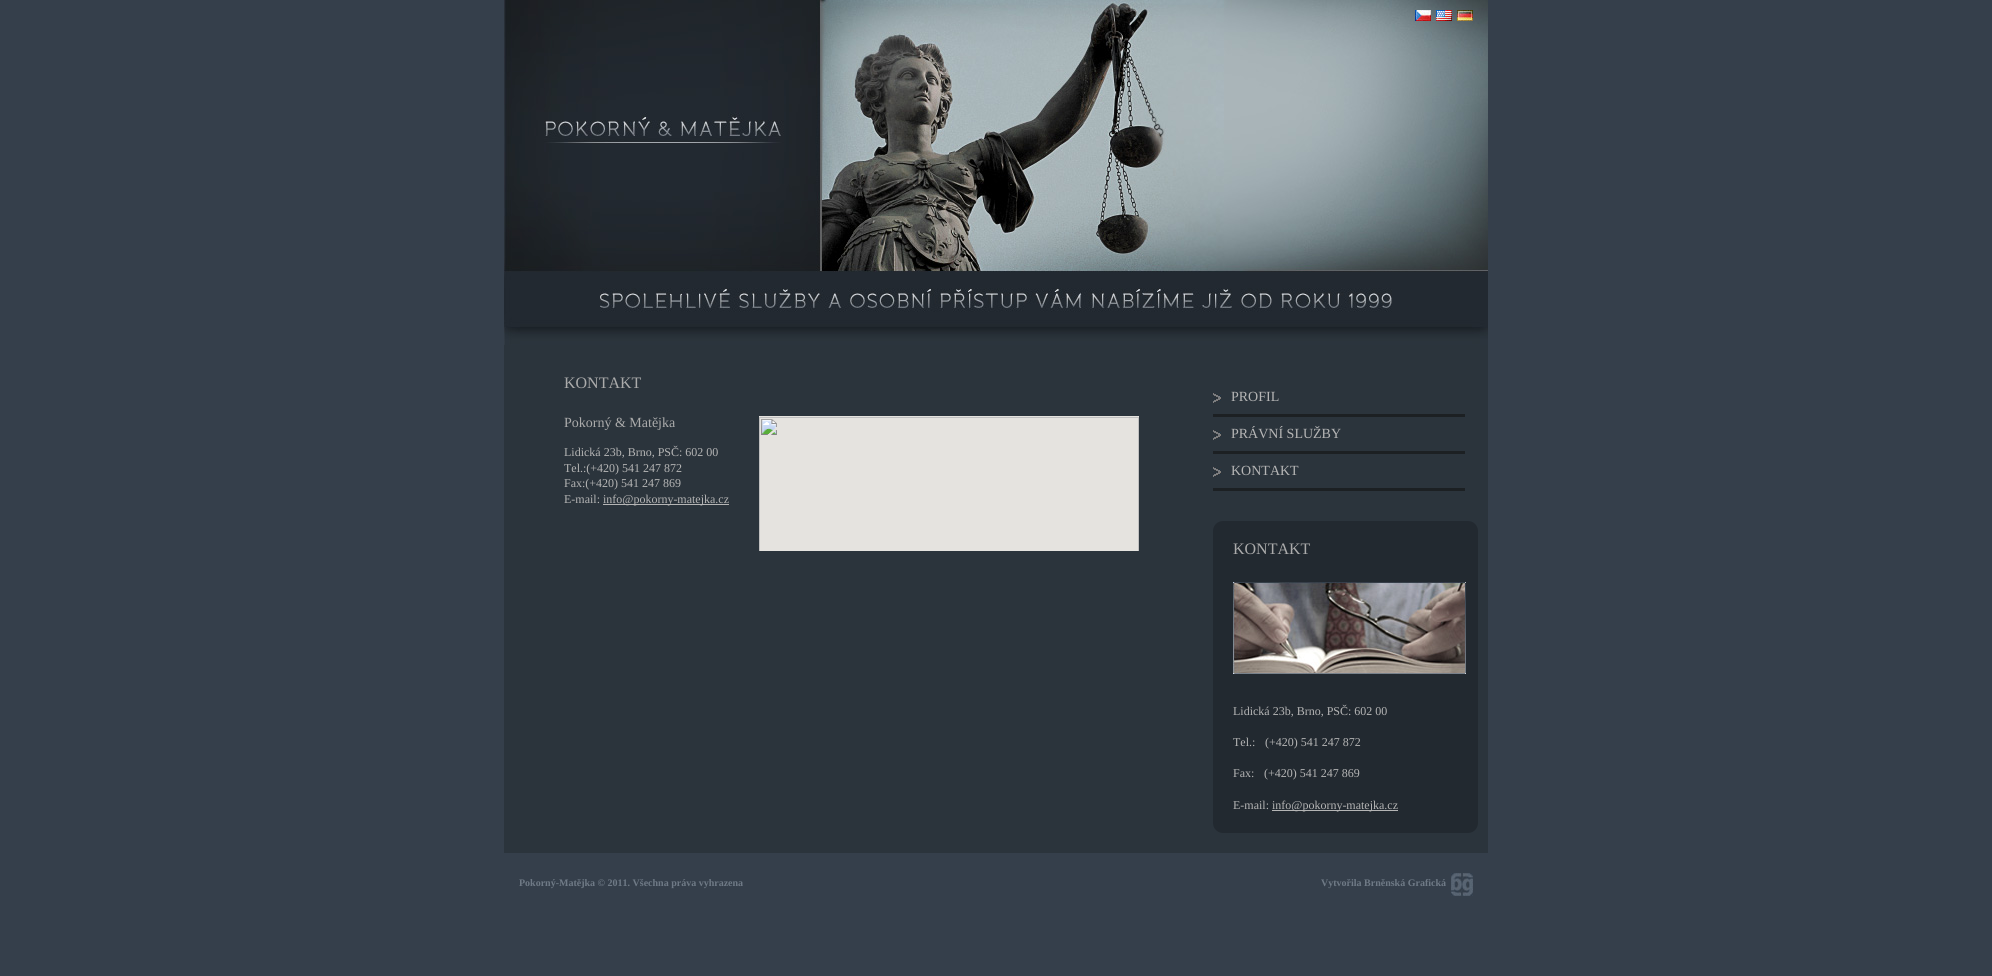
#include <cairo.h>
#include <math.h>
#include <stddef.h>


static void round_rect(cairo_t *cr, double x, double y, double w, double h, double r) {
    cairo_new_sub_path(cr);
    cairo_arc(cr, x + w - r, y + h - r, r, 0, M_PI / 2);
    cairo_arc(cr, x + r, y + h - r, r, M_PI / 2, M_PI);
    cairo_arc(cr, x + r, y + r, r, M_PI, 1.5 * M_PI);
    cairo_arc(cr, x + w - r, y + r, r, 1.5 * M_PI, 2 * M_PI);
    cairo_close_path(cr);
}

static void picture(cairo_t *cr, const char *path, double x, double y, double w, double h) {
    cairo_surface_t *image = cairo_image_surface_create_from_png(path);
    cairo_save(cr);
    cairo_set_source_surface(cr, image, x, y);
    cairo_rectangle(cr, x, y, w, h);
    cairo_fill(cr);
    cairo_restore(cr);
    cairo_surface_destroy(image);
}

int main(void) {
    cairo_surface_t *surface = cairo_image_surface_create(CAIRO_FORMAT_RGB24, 1992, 976);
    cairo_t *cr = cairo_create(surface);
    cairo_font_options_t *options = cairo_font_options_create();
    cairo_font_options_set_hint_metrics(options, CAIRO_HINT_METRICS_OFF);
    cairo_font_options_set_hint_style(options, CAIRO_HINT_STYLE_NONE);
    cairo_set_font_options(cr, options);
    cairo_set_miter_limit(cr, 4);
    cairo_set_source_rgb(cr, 0.208, 0.247, 0.294);
    cairo_paint(cr);
    picture(cr, "img1.png", 504, 0, 984, 345);
    picture(cr, "img2.png", 1415, 10, 16, 11);
    picture(cr, "img3.png", 1436, 10, 16, 11);
    picture(cr, "img4.png", 1457, 10, 16, 11);
    cairo_set_source_rgb(cr, 0.169, 0.204, 0.235);
    cairo_rectangle(cr, 504, 345, 984, 508);
    cairo_fill(cr);
    cairo_select_font_face(cr, "Liberation Serif", CAIRO_FONT_SLANT_NORMAL, CAIRO_FONT_WEIGHT_NORMAL);
    cairo_set_font_size(cr, 16);
    cairo_set_source_rgb(cr, 0.671, 0.671, 0.671);
    cairo_move_to(cr, 564, 388);
    cairo_show_text(cr, "KONTAKT");
    cairo_set_font_size(cr, 14);
    cairo_move_to(cr, 564, 427);
    cairo_show_text(cr, "Pokorný & Matějka");
    cairo_set_font_size(cr, 12);
    cairo_set_source_rgb(cr, 0.71, 0.71, 0.71);
    cairo_move_to(cr, 564, 456);
    cairo_show_text(cr, "Lidická 23b, Brno, PSČ: 602 00");
    cairo_move_to(cr, 564, 472);
    cairo_show_text(cr, "Tel.:(+420) 541 247 872");
    cairo_move_to(cr, 564, 487);
    cairo_show_text(cr, "Fax:(+420) 541 247 869");
    cairo_move_to(cr, 564, 503);
    cairo_show_text(cr, "E-mail:");
    cairo_rectangle(cr, 603, 504, 126, 1);
    cairo_fill(cr);
    cairo_move_to(cr, 603, 503);
    cairo_show_text(cr, "info@pokorny-matejka.cz");
    picture(cr, "img5.png", 759, 416, 380, 135);
    picture(cr, "img6.png", 1213, 393, 8, 10);
    cairo_set_font_size(cr, 14);
    cairo_move_to(cr, 1231, 401);
    cairo_show_text(cr, "PROFIL");
    cairo_set_source_rgb(cr, 0.11, 0.125, 0.137);
    cairo_rectangle(cr, 1213, 414, 252, 3);
    cairo_fill(cr);
    picture(cr, "img6.png", 1213, 430, 8, 10);
    cairo_set_source_rgb(cr, 0.71, 0.71, 0.71);
    cairo_move_to(cr, 1231, 438);
    cairo_show_text(cr, "PRÁVNÍ SLUŽBY");
    cairo_set_source_rgb(cr, 0.11, 0.125, 0.137);
    cairo_rectangle(cr, 1213, 451, 252, 3);
    cairo_fill(cr);
    picture(cr, "img6.png", 1213, 467, 8, 10);
    cairo_set_source_rgb(cr, 0.71, 0.71, 0.71);
    cairo_move_to(cr, 1231, 475);
    cairo_show_text(cr, "KONTAKT");
    cairo_set_source_rgb(cr, 0.11, 0.125, 0.137);
    cairo_rectangle(cr, 1213, 488, 252, 3);
    cairo_fill(cr);
    cairo_set_source_rgb(cr, 0.133, 0.161, 0.188);
    round_rect(cr, 1213, 521, 265, 312, 10);
    cairo_fill(cr);
    cairo_set_font_size(cr, 16);
    cairo_set_source_rgb(cr, 0.671, 0.671, 0.671);
    cairo_move_to(cr, 1233, 554);
    cairo_show_text(cr, "KONTAKT");
    picture(cr, "img7.png", 1233, 582, 233, 92);
    cairo_set_font_size(cr, 12);
    cairo_set_source_rgb(cr, 0.71, 0.71, 0.71);
    cairo_move_to(cr, 1233, 715);
    cairo_show_text(cr, "Lidická 23b, Brno, PSČ: 602 00");
    cairo_move_to(cr, 1233, 746);
    cairo_show_text(cr, "Tel.:");
    cairo_move_to(cr, 1265, 746);
    cairo_show_text(cr, "(+420) 541 247 872");
    cairo_move_to(cr, 1233, 777);
    cairo_show_text(cr, "Fax:");
    cairo_move_to(cr, 1264, 777);
    cairo_show_text(cr, "(+420) 541 247 869");
    cairo_move_to(cr, 1233, 809);
    cairo_show_text(cr, "E-mail:");
    cairo_rectangle(cr, 1272, 810, 126, 1);
    cairo_fill(cr);
    cairo_move_to(cr, 1272, 809);
    cairo_show_text(cr, "info@pokorny-matejka.cz");
    cairo_select_font_face(cr, "Liberation Serif", CAIRO_FONT_SLANT_NORMAL, CAIRO_FONT_WEIGHT_BOLD);
    cairo_set_font_size(cr, 10);
    cairo_set_source_rgb(cr, 0.435, 0.478, 0.525);
    cairo_move_to(cr, 519, 886);
    cairo_show_text(cr, "Pokorný-Matějka © 2011. Všechna práva vyhrazena");
    cairo_move_to(cr, 1321, 886);
    cairo_show_text(cr, "Vytvořila Brněnská Grafická");
    picture(cr, "img8.png", 1451, 873, 22, 23);
    cairo_surface_write_to_png(surface, "page.png");
    cairo_font_options_destroy(options);
    cairo_destroy(cr);
    cairo_surface_destroy(surface);
    return 0;
}
